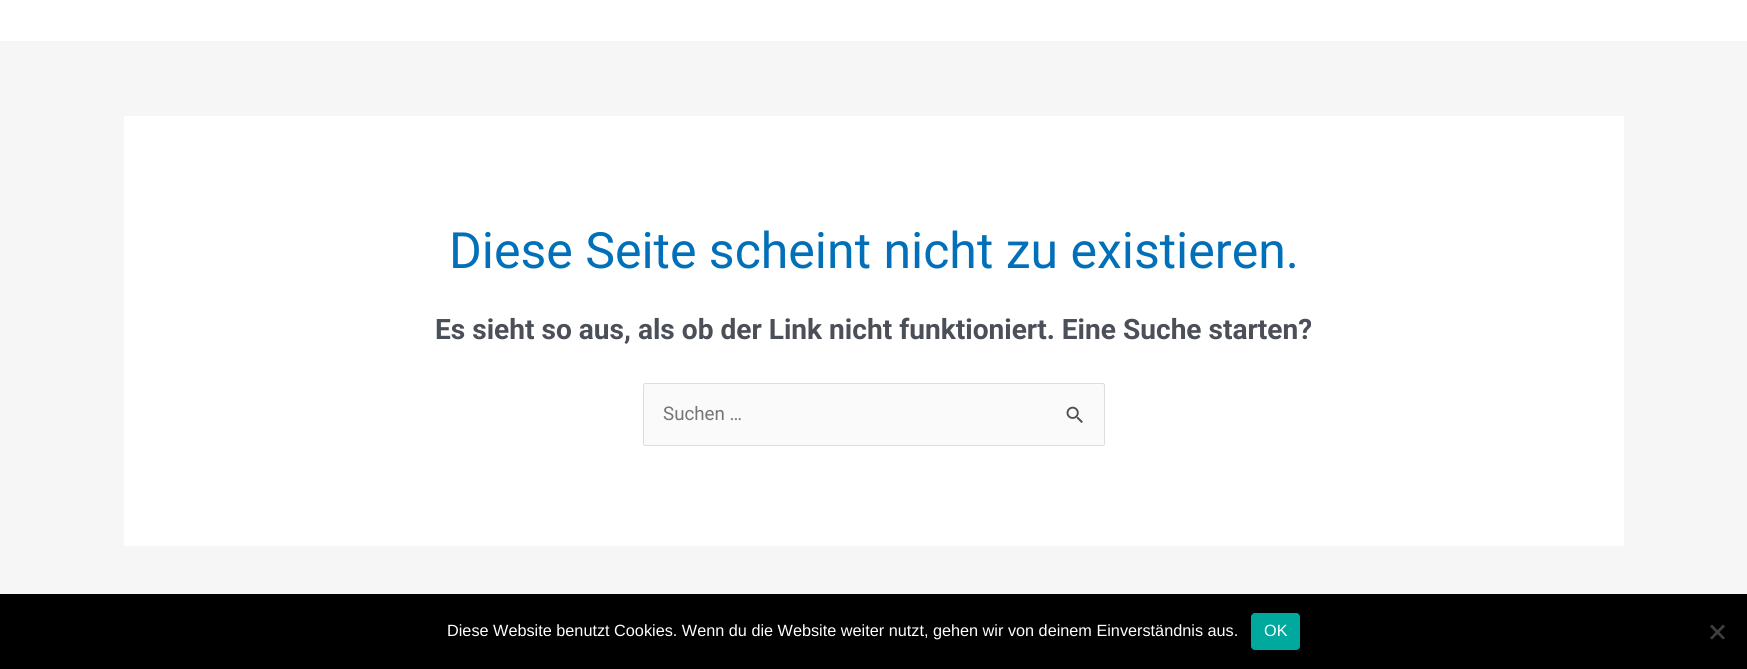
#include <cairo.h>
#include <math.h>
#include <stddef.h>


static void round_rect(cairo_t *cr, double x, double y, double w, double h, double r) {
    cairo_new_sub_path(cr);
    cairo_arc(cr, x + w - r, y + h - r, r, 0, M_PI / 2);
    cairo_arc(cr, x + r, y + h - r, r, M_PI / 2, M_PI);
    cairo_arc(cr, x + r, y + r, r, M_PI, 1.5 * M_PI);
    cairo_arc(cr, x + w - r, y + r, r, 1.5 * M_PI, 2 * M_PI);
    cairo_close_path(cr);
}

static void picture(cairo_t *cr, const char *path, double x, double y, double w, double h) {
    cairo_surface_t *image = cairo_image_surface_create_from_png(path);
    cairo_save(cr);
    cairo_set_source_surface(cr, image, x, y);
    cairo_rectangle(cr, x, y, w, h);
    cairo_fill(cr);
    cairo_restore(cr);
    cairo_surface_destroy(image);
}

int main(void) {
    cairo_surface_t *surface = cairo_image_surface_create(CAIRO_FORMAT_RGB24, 1747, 669);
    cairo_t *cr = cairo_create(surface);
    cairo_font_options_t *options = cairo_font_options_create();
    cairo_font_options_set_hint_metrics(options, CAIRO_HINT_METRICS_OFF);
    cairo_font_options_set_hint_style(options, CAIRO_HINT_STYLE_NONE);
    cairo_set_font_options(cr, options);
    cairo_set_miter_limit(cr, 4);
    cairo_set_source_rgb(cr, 0.961, 0.961, 0.961);
    cairo_paint(cr);
    cairo_set_source_rgb(cr, 1, 1, 1);
    cairo_rectangle(cr, 0, 0, 1747, 41);
    cairo_fill(cr);
    cairo_rectangle(cr, 124, 116, 1500, 430);
    cairo_fill(cr);
    cairo_select_font_face(cr, "Roboto", CAIRO_FONT_SLANT_NORMAL, CAIRO_FONT_WEIGHT_NORMAL);
    cairo_set_font_size(cr, 50);
    cairo_set_source_rgb(cr, 0.004, 0.439, 0.725);
    cairo_move_to(cr, 449, 268);
    cairo_show_text(cr, "Diese Seite scheint nicht zu existieren.");
    cairo_select_font_face(cr, "Roboto", CAIRO_FONT_SLANT_NORMAL, CAIRO_FONT_WEIGHT_BOLD);
    cairo_set_font_size(cr, 28.1);
    cairo_set_source_rgb(cr, 0.294, 0.31, 0.345);
    cairo_move_to(cr, 435, 339);
    cairo_show_text(cr, "Es sieht so aus, als ob der Link nicht funktioniert. Eine Suche starten?");
    cairo_set_source_rgb(cr, 0.98, 0.98, 0.98);
    round_rect(cr, 643.5, 383.5, 461, 62, 2);
    cairo_fill_preserve(cr);
    cairo_set_source_rgb(cr, 0.867, 0.867, 0.867);
    cairo_set_line_width(cr, 1);
    cairo_stroke(cr);
    cairo_select_font_face(cr, "Roboto", CAIRO_FONT_SLANT_NORMAL, CAIRO_FONT_WEIGHT_NORMAL);
    cairo_set_font_size(cr, 18.75);
    cairo_set_source_rgb(cr, 0.459, 0.459, 0.459);
    cairo_move_to(cr, 663, 420);
    cairo_show_text(cr, "Suchen …");
    picture(cr, "img1.png", 1066, 406, 17, 17);
    cairo_set_source_rgb(cr, 0, 0, 0);
    cairo_rectangle(cr, 0, 594, 1747, 75);
    cairo_fill(cr);
    cairo_select_font_face(cr, "Liberation Sans", CAIRO_FONT_SLANT_NORMAL, CAIRO_FONT_WEIGHT_NORMAL);
    cairo_set_font_size(cr, 16.25);
    cairo_set_source_rgb(cr, 1, 1, 1);
    cairo_move_to(cr, 447, 636);
    cairo_show_text(cr, "Diese Website benutzt Cookies. Wenn du die Website weiter nutzt, gehen wir von deinem Einverständnis aus.");
    cairo_set_source_rgb(cr, 0, 0.663, 0.616);
    round_rect(cr, 1251, 613, 49, 37, 4);
    cairo_fill(cr);
    cairo_set_source_rgb(cr, 1, 1, 1);
    cairo_move_to(cr, 1264, 636);
    cairo_show_text(cr, "OK");
    cairo_set_source_rgb(cr, 0.251, 0.251, 0.251);
    cairo_new_path(cr);
    cairo_move_to(cr, 1723, 624.5);
    cairo_line_to(cr, 1725, 626.5);
    cairo_line_to(cr, 1712, 639.5);
    cairo_line_to(cr, 1710, 638);
    cairo_close_path(cr);
    cairo_fill(cr);
    cairo_new_path(cr);
    cairo_move_to(cr, 1710, 626.5);
    cairo_line_to(cr, 1712, 624.5);
    cairo_line_to(cr, 1725, 638);
    cairo_line_to(cr, 1723, 639.5);
    cairo_close_path(cr);
    cairo_fill(cr);
    cairo_surface_write_to_png(surface, "page.png");
    cairo_font_options_destroy(options);
    cairo_destroy(cr);
    cairo_surface_destroy(surface);
    return 0;
}
